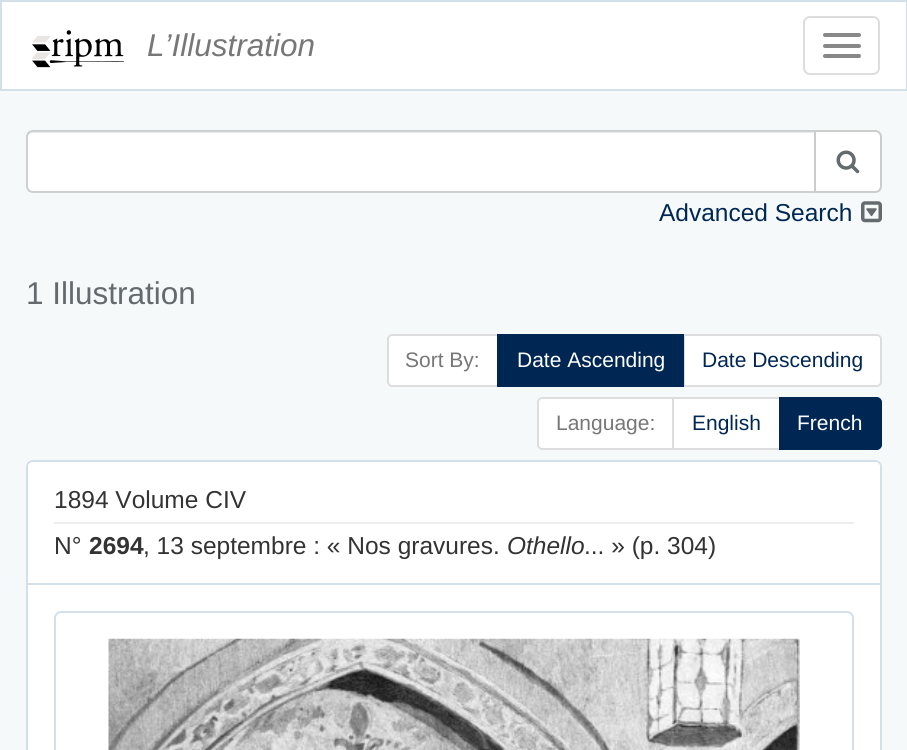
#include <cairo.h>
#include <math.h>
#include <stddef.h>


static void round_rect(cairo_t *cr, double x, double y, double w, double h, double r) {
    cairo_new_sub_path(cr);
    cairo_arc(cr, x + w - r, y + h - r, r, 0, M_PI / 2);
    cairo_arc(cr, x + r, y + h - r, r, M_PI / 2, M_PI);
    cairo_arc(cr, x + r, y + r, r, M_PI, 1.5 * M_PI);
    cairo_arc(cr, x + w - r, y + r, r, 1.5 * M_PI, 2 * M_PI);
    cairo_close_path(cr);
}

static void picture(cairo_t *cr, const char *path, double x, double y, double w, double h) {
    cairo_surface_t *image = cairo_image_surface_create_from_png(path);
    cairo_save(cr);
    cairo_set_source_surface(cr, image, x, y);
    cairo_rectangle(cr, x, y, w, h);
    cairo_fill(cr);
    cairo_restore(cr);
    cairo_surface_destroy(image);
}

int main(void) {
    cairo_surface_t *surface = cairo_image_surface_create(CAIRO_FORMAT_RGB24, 907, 750);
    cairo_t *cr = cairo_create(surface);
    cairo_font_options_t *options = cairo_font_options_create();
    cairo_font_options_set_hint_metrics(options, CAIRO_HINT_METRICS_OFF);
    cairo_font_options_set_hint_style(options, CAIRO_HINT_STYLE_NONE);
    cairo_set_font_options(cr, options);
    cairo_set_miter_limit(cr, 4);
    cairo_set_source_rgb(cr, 0.961, 0.973, 0.98);
    cairo_paint(cr);
    cairo_set_source_rgb(cr, 1, 1, 1);
    cairo_rectangle(cr, 1, 1, 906, 89);
    cairo_fill_preserve(cr);
    cairo_set_source_rgb(cr, 0.827, 0.878, 0.914);
    cairo_stroke(cr);
    picture(cr, "img1.png", 32, 30, 92, 38);
    cairo_select_font_face(cr, "Liberation Sans", CAIRO_FONT_SLANT_ITALIC, CAIRO_FONT_WEIGHT_NORMAL);
    cairo_set_font_size(cr, 31.5);
    cairo_set_source_rgb(cr, 0.467, 0.467, 0.467);
    cairo_move_to(cr, 147, 56);
    cairo_show_text(cr, "L’Illustration");
    round_rect(cr, 804, 17, 75, 57, 6);
    cairo_set_source_rgb(cr, 0.867, 0.867, 0.867);
    cairo_stroke(cr);
    cairo_set_source_rgb(cr, 0.533, 0.533, 0.533);
    round_rect(cr, 823, 33, 38, 4, 2);
    cairo_fill(cr);
    round_rect(cr, 823, 44, 38, 4, 2);
    cairo_fill(cr);
    round_rect(cr, 823, 54, 38, 4, 2);
    cairo_fill(cr);
    cairo_set_source_rgb(cr, 1, 1, 1);
    cairo_new_path(cr);
    cairo_move_to(cr, 33, 130);
    cairo_line_to(cr, 816, 130);
    cairo_line_to(cr, 816, 193);
    cairo_line_to(cr, 33, 193);
    cairo_curve_to(cr, 29, 193, 26, 190, 26, 186);
    cairo_line_to(cr, 26, 137);
    cairo_curve_to(cr, 26, 133, 29, 130, 33, 130);
    cairo_close_path(cr);
    cairo_fill(cr);
    cairo_set_source_rgb(cr, 0.925, 0.925, 0.925);
    cairo_new_path(cr);
    cairo_move_to(cr, 33, 133);
    cairo_line_to(cr, 814, 133);
    cairo_line_to(cr, 814, 131);
    cairo_line_to(cr, 33, 131);
    cairo_curve_to(cr, 29, 131, 28, 135, 28, 138);
    cairo_curve_to(cr, 28, 135, 30, 133, 33, 133);
    cairo_close_path(cr);
    cairo_fill(cr);
    cairo_new_path(cr);
    cairo_move_to(cr, 33, 131);
    cairo_line_to(cr, 815, 131);
    cairo_line_to(cr, 815, 192);
    cairo_line_to(cr, 33, 192);
    cairo_curve_to(cr, 29.5, 192, 27, 189.5, 27, 186);
    cairo_line_to(cr, 27, 137);
    cairo_curve_to(cr, 27, 133.5, 29.5, 131, 33, 131);
    cairo_close_path(cr);
    cairo_set_source_rgb(cr, 0.8, 0.816, 0.824);
    cairo_stroke(cr);
    cairo_set_source_rgb(cr, 1, 1, 1);
    cairo_new_path(cr);
    cairo_move_to(cr, 815, 131);
    cairo_line_to(cr, 875, 131);
    cairo_curve_to(cr, 878.5, 131, 881, 133.5, 881, 137);
    cairo_line_to(cr, 881, 186);
    cairo_curve_to(cr, 881, 189.5, 878.5, 192, 875, 192);
    cairo_line_to(cr, 815, 192);
    cairo_close_path(cr);
    cairo_fill_preserve(cr);
    cairo_set_source_rgb(cr, 0.8, 0.8, 0.8);
    cairo_stroke(cr);
    picture(cr, "img2.png", 836, 150, 24, 24);
    cairo_select_font_face(cr, "Liberation Sans", CAIRO_FONT_SLANT_NORMAL, CAIRO_FONT_WEIGHT_NORMAL);
    cairo_set_font_size(cr, 24.5);
    cairo_set_source_rgb(cr, 0, 0.149, 0.329);
    cairo_move_to(cr, 659, 221);
    cairo_show_text(cr, "Advanced Search");
    picture(cr, "img3.png", 861, 201, 21, 22);
    cairo_set_font_size(cr, 31.5);
    cairo_set_source_rgb(cr, 0.388, 0.42, 0.435);
    cairo_move_to(cr, 26, 304);
    cairo_show_text(cr, "1 Illustration");
    cairo_set_source_rgb(cr, 1, 1, 1);
    cairo_new_path(cr);
    cairo_move_to(cr, 392, 335);
    cairo_line_to(cr, 498, 335);
    cairo_line_to(cr, 498, 386);
    cairo_line_to(cr, 392, 386);
    cairo_curve_to(cr, 390, 386, 388, 384, 388, 382);
    cairo_line_to(cr, 388, 339);
    cairo_curve_to(cr, 388, 337, 390, 335, 392, 335);
    cairo_close_path(cr);
    cairo_fill_preserve(cr);
    cairo_set_source_rgb(cr, 0.867, 0.867, 0.867);
    cairo_stroke(cr);
    cairo_set_font_size(cr, 21);
    cairo_set_source_rgb(cr, 0.467, 0.467, 0.467);
    cairo_move_to(cr, 405, 367);
    cairo_show_text(cr, "Sort By:");
    cairo_set_source_rgb(cr, 1, 1, 1);
    cairo_new_path(cr);
    cairo_move_to(cr, 684, 335);
    cairo_line_to(cr, 877, 335);
    cairo_curve_to(cr, 879, 335, 881, 337, 881, 339);
    cairo_line_to(cr, 881, 382);
    cairo_curve_to(cr, 881, 384, 879, 386, 877, 386);
    cairo_line_to(cr, 684, 386);
    cairo_close_path(cr);
    cairo_fill_preserve(cr);
    cairo_set_source_rgb(cr, 0.867, 0.867, 0.867);
    cairo_stroke(cr);
    cairo_set_source_rgb(cr, 0, 0.149, 0.329);
    cairo_rectangle(cr, 497, 334, 187, 53);
    cairo_fill(cr);
    cairo_set_source_rgb(cr, 1, 1, 1);
    cairo_move_to(cr, 517, 367);
    cairo_show_text(cr, "Date Ascending");
    cairo_set_source_rgb(cr, 0, 0.149, 0.329);
    cairo_move_to(cr, 702, 367);
    cairo_show_text(cr, "Date Descending");
    cairo_set_source_rgb(cr, 1, 1, 1);
    cairo_new_path(cr);
    cairo_move_to(cr, 542, 398);
    cairo_line_to(cr, 673, 398);
    cairo_line_to(cr, 673, 449);
    cairo_line_to(cr, 542, 449);
    cairo_curve_to(cr, 540, 449, 538, 447, 538, 445);
    cairo_line_to(cr, 538, 402);
    cairo_curve_to(cr, 538, 400, 540, 398, 542, 398);
    cairo_close_path(cr);
    cairo_fill_preserve(cr);
    cairo_set_source_rgb(cr, 0.867, 0.867, 0.867);
    cairo_stroke(cr);
    cairo_set_source_rgb(cr, 0.467, 0.467, 0.467);
    cairo_move_to(cr, 556, 430);
    cairo_show_text(cr, "Language:");
    cairo_set_source_rgb(cr, 1, 1, 1);
    cairo_rectangle(cr, 673, 398, 107, 51);
    cairo_fill_preserve(cr);
    cairo_set_source_rgb(cr, 0.867, 0.867, 0.867);
    cairo_stroke(cr);
    cairo_set_source_rgb(cr, 0, 0.149, 0.329);
    cairo_move_to(cr, 692, 430);
    cairo_show_text(cr, "English");
    cairo_new_path(cr);
    cairo_move_to(cr, 780, 398);
    cairo_line_to(cr, 877, 398);
    cairo_curve_to(cr, 879, 398, 881, 400, 881, 402);
    cairo_line_to(cr, 881, 445);
    cairo_curve_to(cr, 881, 447, 879, 449, 877, 449);
    cairo_line_to(cr, 780, 449);
    cairo_close_path(cr);
    cairo_fill_preserve(cr);
    cairo_stroke(cr);
    cairo_set_source_rgb(cr, 1, 1, 1);
    cairo_move_to(cr, 797, 430);
    cairo_show_text(cr, "French");
    round_rect(cr, 27, 461, 854, 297, 6);
    cairo_fill_preserve(cr);
    cairo_set_source_rgb(cr, 0.827, 0.878, 0.914);
    cairo_stroke(cr);
    cairo_set_source_rgb(cr, 1, 1, 1);
    cairo_new_path(cr);
    cairo_move_to(cr, 33, 462);
    cairo_line_to(cr, 875, 462);
    cairo_curve_to(cr, 878, 462, 880, 464, 880, 467);
    cairo_line_to(cr, 880, 585);
    cairo_line_to(cr, 28, 585);
    cairo_line_to(cr, 28, 467);
    cairo_curve_to(cr, 28, 464, 30, 462, 33, 462);
    cairo_close_path(cr);
    cairo_fill(cr);
    cairo_set_source_rgb(cr, 0.827, 0.878, 0.914);
    cairo_rectangle(cr, 28, 583, 852, 2);
    cairo_fill(cr);
    cairo_set_font_size(cr, 24.5);
    cairo_set_source_rgb(cr, 0.2, 0.2, 0.2);
    cairo_move_to(cr, 54, 508);
    cairo_show_text(cr, "1894 Volume CIV");
    cairo_set_source_rgb(cr, 0.933, 0.933, 0.933);
    cairo_rectangle(cr, 54, 522, 800, 2);
    cairo_fill(cr);
    cairo_set_source_rgb(cr, 0.2, 0.2, 0.2);
    cairo_move_to(cr, 54, 554);
    cairo_show_text(cr, "N°");
    cairo_select_font_face(cr, "Liberation Sans", CAIRO_FONT_SLANT_NORMAL, CAIRO_FONT_WEIGHT_BOLD);
    cairo_move_to(cr, 89, 554);
    cairo_show_text(cr, "2694");
    cairo_select_font_face(cr, "Liberation Sans", CAIRO_FONT_SLANT_NORMAL, CAIRO_FONT_WEIGHT_NORMAL);
    cairo_move_to(cr, 143, 554);
    cairo_show_text(cr, ", 13 septembre : « Nos gravures.");
    cairo_select_font_face(cr, "Liberation Sans", CAIRO_FONT_SLANT_ITALIC, CAIRO_FONT_WEIGHT_NORMAL);
    cairo_move_to(cr, 507, 554);
    cairo_show_text(cr, "Othello");
    cairo_select_font_face(cr, "Liberation Sans", CAIRO_FONT_SLANT_NORMAL, CAIRO_FONT_WEIGHT_NORMAL);
    cairo_move_to(cr, 584, 554);
    cairo_show_text(cr, "... » (p. 304)");
    round_rect(cr, 55, 612, 798, 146, 6);
    cairo_set_source_rgb(cr, 0.827, 0.878, 0.914);
    cairo_stroke(cr);
    picture(cr, "img4.png", 108, 638, 692, 112);
    cairo_surface_write_to_png(surface, "page.png");
    cairo_font_options_destroy(options);
    cairo_destroy(cr);
    cairo_surface_destroy(surface);
    return 0;
}
